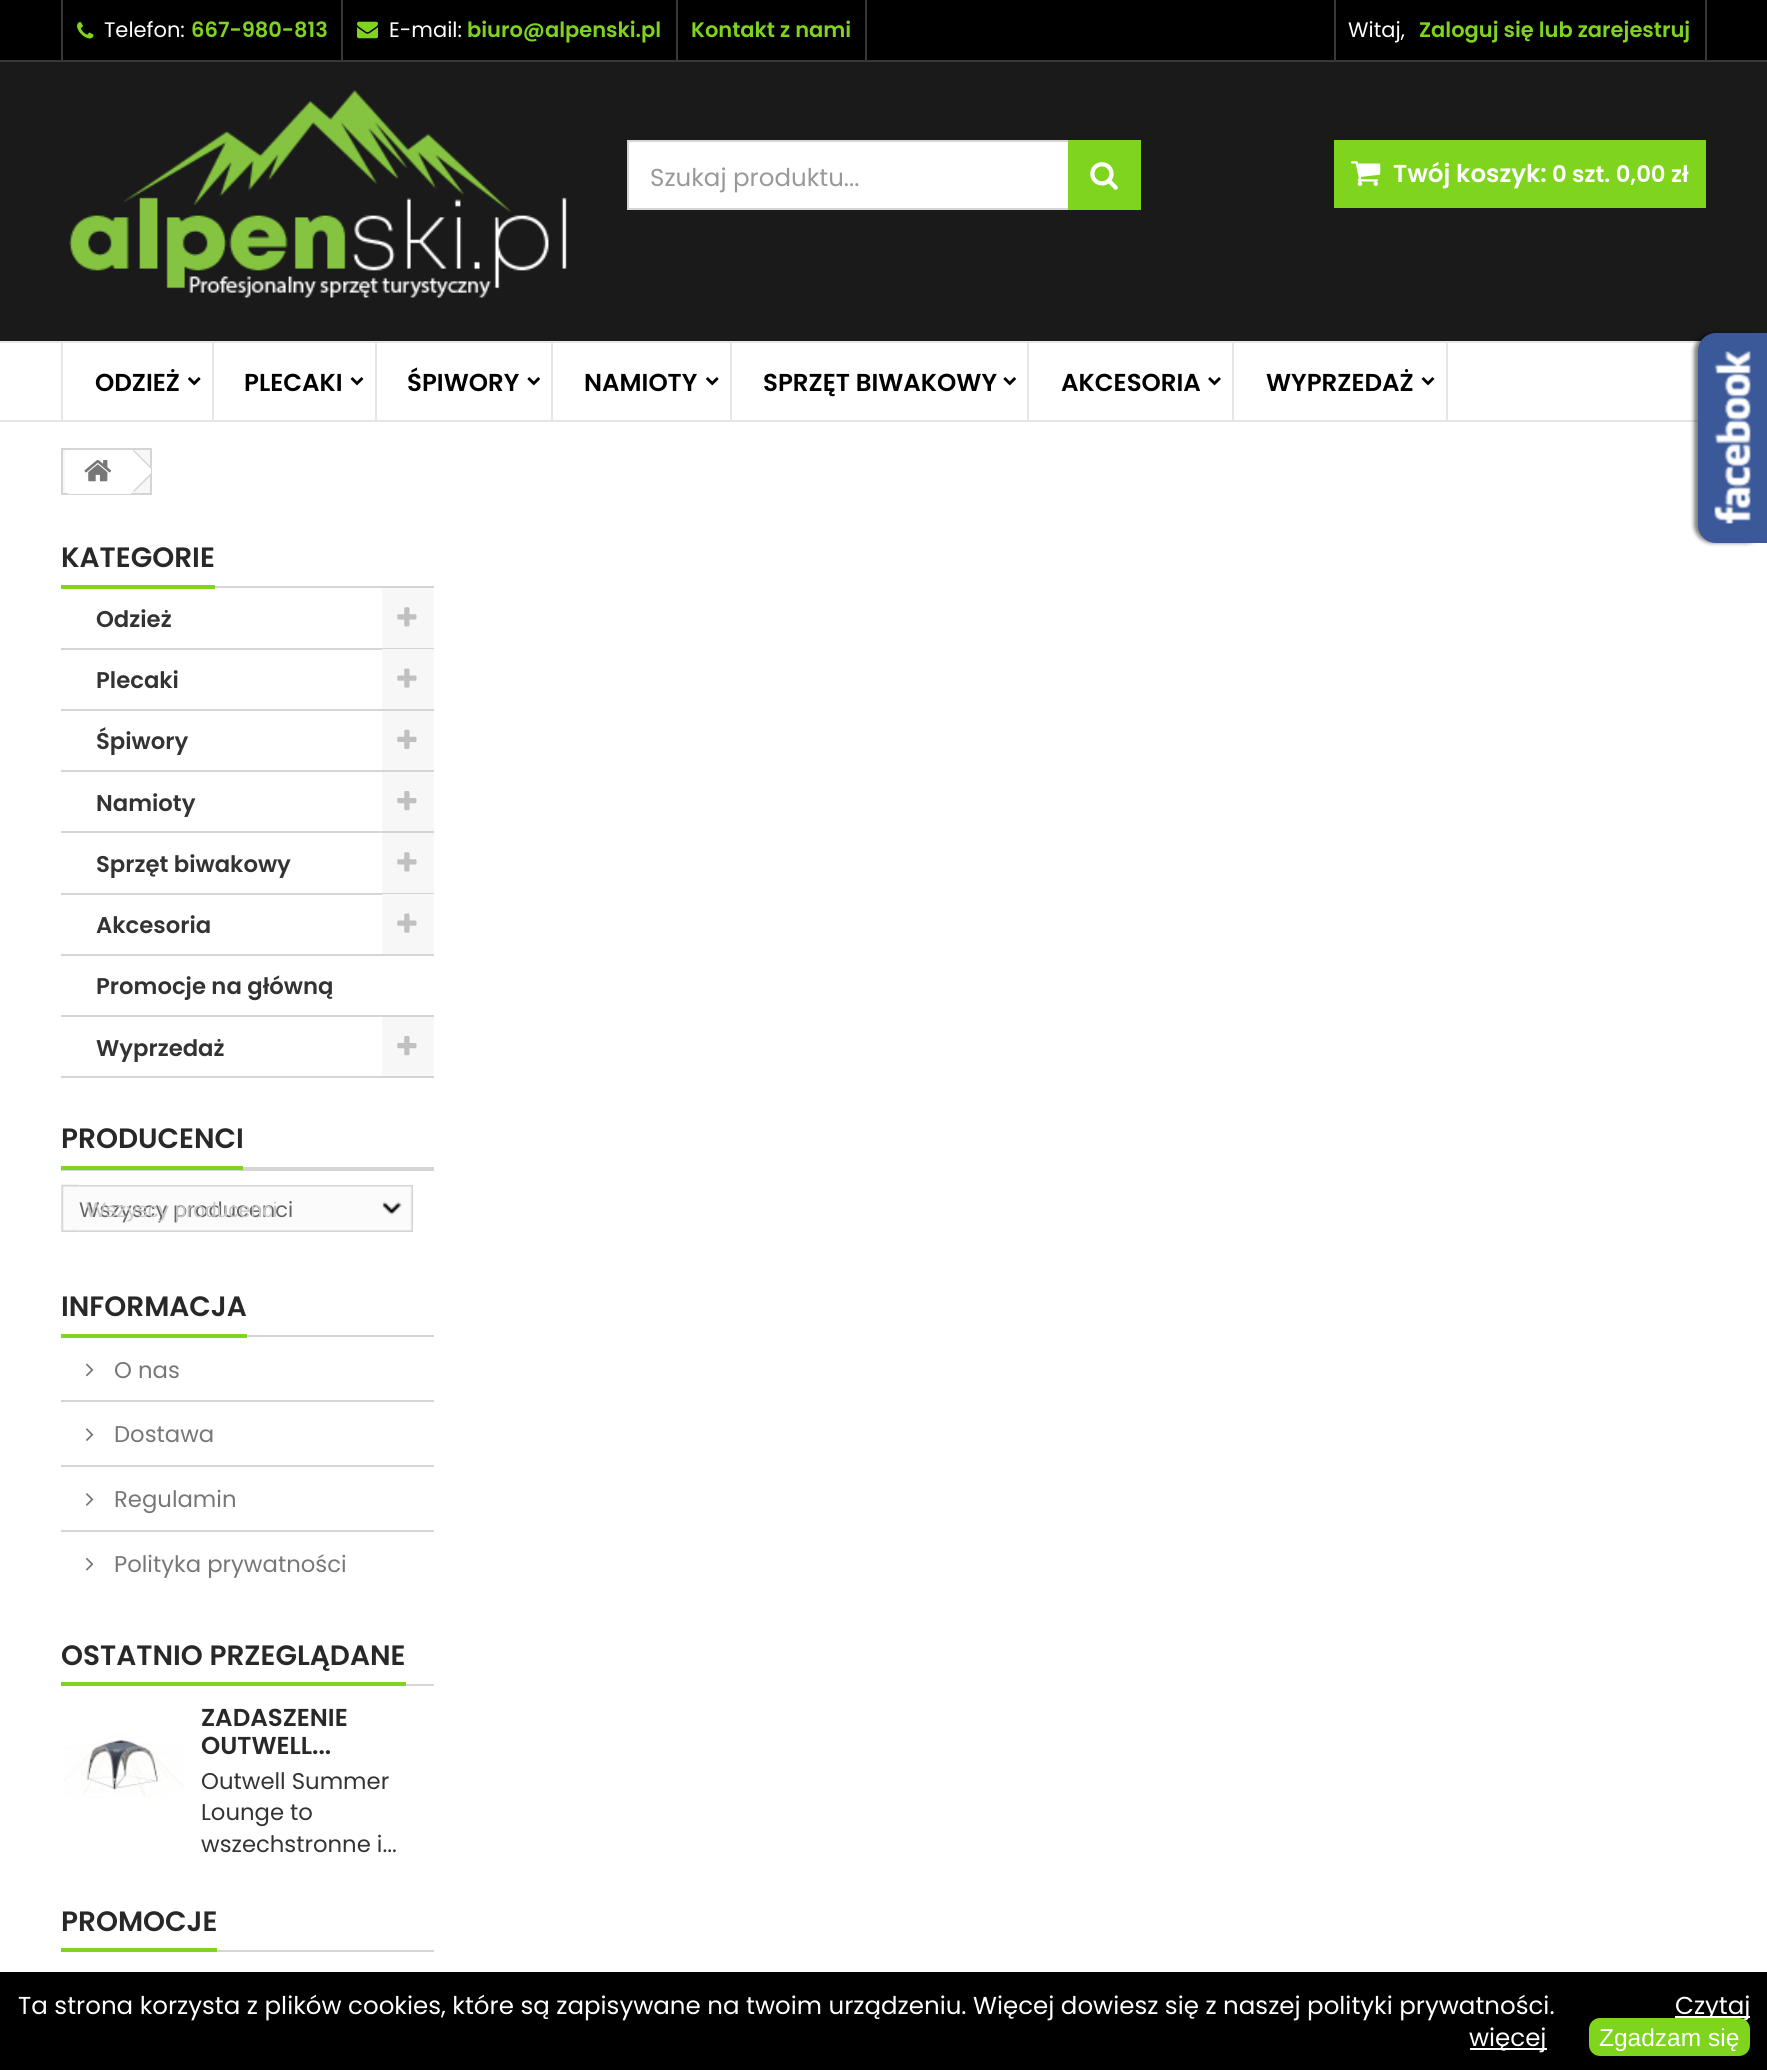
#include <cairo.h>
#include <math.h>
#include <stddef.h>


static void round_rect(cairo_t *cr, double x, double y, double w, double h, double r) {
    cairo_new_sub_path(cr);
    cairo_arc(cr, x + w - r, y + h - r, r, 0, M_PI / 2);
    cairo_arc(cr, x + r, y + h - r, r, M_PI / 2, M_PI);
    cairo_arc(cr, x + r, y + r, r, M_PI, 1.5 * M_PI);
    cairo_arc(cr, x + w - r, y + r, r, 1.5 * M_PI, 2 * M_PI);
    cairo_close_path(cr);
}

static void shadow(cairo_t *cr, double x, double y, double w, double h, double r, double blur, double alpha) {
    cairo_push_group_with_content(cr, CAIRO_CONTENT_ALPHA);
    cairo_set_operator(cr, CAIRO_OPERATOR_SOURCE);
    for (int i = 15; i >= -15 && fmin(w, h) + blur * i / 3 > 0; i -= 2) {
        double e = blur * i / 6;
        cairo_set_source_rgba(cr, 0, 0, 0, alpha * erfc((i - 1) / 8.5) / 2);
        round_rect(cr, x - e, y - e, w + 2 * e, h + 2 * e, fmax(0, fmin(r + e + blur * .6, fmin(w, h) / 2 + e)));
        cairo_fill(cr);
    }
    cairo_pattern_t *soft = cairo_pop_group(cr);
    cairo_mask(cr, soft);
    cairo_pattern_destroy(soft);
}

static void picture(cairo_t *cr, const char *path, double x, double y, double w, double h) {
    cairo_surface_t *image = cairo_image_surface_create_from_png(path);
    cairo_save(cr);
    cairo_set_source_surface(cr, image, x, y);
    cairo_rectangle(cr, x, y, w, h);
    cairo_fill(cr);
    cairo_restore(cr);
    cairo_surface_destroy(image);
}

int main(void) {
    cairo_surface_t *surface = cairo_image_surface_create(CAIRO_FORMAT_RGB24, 1767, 2070);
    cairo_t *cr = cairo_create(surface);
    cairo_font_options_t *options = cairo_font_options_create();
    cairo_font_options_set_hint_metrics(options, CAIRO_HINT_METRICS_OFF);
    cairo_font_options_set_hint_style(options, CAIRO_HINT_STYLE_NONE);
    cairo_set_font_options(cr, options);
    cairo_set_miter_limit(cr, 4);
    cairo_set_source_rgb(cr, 1, 1, 1);
    cairo_paint(cr);
    cairo_set_source_rgb(cr, 0.106, 0.102, 0.106);
    cairo_rectangle(cr, 0, 62, 1767, 279);
    cairo_fill(cr);
    cairo_set_source_rgb(cr, 0, 0, 0);
    cairo_rectangle(cr, 0, 0, 1767, 60);
    cairo_fill(cr);
    cairo_set_source_rgb(cr, 0.22, 0.22, 0.22);
    cairo_rectangle(cr, 0, 60, 1767, 2);
    cairo_fill(cr);
    cairo_rectangle(cr, 61, 0, 2, 60);
    cairo_fill(cr);
    picture(cr, "img1.png", 77, 22, 17, 17);
    cairo_select_font_face(cr, "Poppins", CAIRO_FONT_SLANT_NORMAL, CAIRO_FONT_WEIGHT_NORMAL);
    cairo_set_font_size(cr, 21);
    cairo_set_source_rgb(cr, 1, 1, 1);
    cairo_move_to(cr, 104, 37);
    cairo_show_text(cr, "Telefon:");
    cairo_select_font_face(cr, "Poppins SemiBold", CAIRO_FONT_SLANT_NORMAL, CAIRO_FONT_WEIGHT_NORMAL);
    cairo_set_source_rgb(cr, 0.498, 0.831, 0.114);
    cairo_move_to(cr, 191, 37);
    cairo_show_text(cr, "667-980-813");
    cairo_set_source_rgb(cr, 0.22, 0.22, 0.22);
    cairo_rectangle(cr, 341, 0, 2, 60);
    cairo_fill(cr);
    picture(cr, "img2.png", 357, 21, 21, 18);
    cairo_select_font_face(cr, "Poppins", CAIRO_FONT_SLANT_NORMAL, CAIRO_FONT_WEIGHT_NORMAL);
    cairo_set_source_rgb(cr, 1, 1, 1);
    cairo_move_to(cr, 389, 37);
    cairo_show_text(cr, "E-mail:");
    cairo_select_font_face(cr, "Poppins SemiBold", CAIRO_FONT_SLANT_NORMAL, CAIRO_FONT_WEIGHT_NORMAL);
    cairo_set_source_rgb(cr, 0.498, 0.831, 0.114);
    cairo_move_to(cr, 467, 37);
    cairo_show_text(cr, "biuro@alpenski.pl");
    cairo_set_source_rgb(cr, 0.22, 0.22, 0.22);
    cairo_rectangle(cr, 865, 0, 2, 60);
    cairo_fill(cr);
    cairo_rectangle(cr, 676, 0, 2, 60);
    cairo_fill(cr);
    cairo_set_source_rgb(cr, 0.498, 0.831, 0.114);
    cairo_move_to(cr, 691, 37);
    cairo_show_text(cr, "Kontakt z nami");
    cairo_set_source_rgb(cr, 0.22, 0.22, 0.22);
    cairo_rectangle(cr, 1334, 0, 2, 60);
    cairo_fill(cr);
    cairo_select_font_face(cr, "Poppins", CAIRO_FONT_SLANT_NORMAL, CAIRO_FONT_WEIGHT_NORMAL);
    cairo_set_source_rgb(cr, 1, 1, 1);
    cairo_move_to(cr, 1348, 37);
    cairo_show_text(cr, "Witaj,");
    cairo_set_source_rgb(cr, 0.22, 0.22, 0.22);
    cairo_rectangle(cr, 1705, 0, 2, 60);
    cairo_fill(cr);
    cairo_select_font_face(cr, "Poppins SemiBold", CAIRO_FONT_SLANT_NORMAL, CAIRO_FONT_WEIGHT_NORMAL);
    cairo_set_source_rgb(cr, 0.498, 0.831, 0.114);
    cairo_move_to(cr, 1419, 37);
    cairo_show_text(cr, "Zaloguj się lub zarejestruj");
    picture(cr, "img3.png", 69, 90, 498, 209);
    cairo_set_source_rgb(cr, 1, 1, 1);
    cairo_rectangle(cr, 629, 142, 439, 66);
    cairo_fill(cr);
    cairo_rectangle(cr, 628, 141, 512, 68);
    cairo_set_source_rgb(cr, 0.839, 0.831, 0.831);
    cairo_stroke(cr);
    cairo_select_font_face(cr, "Poppins", CAIRO_FONT_SLANT_NORMAL, CAIRO_FONT_WEIGHT_NORMAL);
    cairo_set_font_size(cr, 24.5);
    cairo_set_source_rgb(cr, 0.6, 0.6, 0.6);
    cairo_move_to(cr, 650, 186);
    cairo_show_text(cr, "Szukaj produktu...");
    cairo_set_source_rgb(cr, 0.498, 0.831, 0.114);
    cairo_rectangle(cr, 1068, 140, 73, 70);
    cairo_fill(cr);
    picture(cr, "img4.png", 1090, 162, 28, 28);
    cairo_rectangle(cr, 1334, 140, 372, 68);
    cairo_fill(cr);
    picture(cr, "img5.png", 1351, 161, 30, 25);
    cairo_select_font_face(cr, "Poppins SemiBold", CAIRO_FONT_SLANT_NORMAL, CAIRO_FONT_WEIGHT_NORMAL);
    cairo_set_source_rgb(cr, 1, 1, 1);
    cairo_move_to(cr, 1393, 182);
    cairo_show_text(cr, "Twój koszyk:");
    cairo_set_font_size(cr, 22.75);
    cairo_move_to(cr, 1552, 182);
    cairo_show_text(cr, "0 szt. 0,00 zł");
    cairo_set_source_rgb(cr, 0.902, 0.902, 0.902);
    cairo_rectangle(cr, 0, 341, 1701, 2);
    cairo_fill(cr);
    cairo_rectangle(cr, 0, 420, 1698, 2);
    cairo_fill(cr);
    cairo_rectangle(cr, 212, 343, 2, 77);
    cairo_fill(cr);
    cairo_rectangle(cr, 61, 343, 2, 77);
    cairo_fill(cr);
    cairo_set_font_size(cr, 24.5);
    cairo_set_source_rgb(cr, 0, 0, 0);
    cairo_move_to(cr, 95, 391);
    cairo_show_text(cr, "ODZIEŻ");
    picture(cr, "img6.png", 188, 377, 13, 9);
    cairo_set_source_rgb(cr, 0.902, 0.902, 0.902);
    cairo_rectangle(cr, 375, 343, 2, 77);
    cairo_fill(cr);
    cairo_set_source_rgb(cr, 0, 0, 0);
    cairo_move_to(cr, 244, 391);
    cairo_show_text(cr, "PLECAKI");
    picture(cr, "img7.png", 350, 377, 14, 9);
    cairo_set_source_rgb(cr, 0.902, 0.902, 0.902);
    cairo_rectangle(cr, 551, 343, 2, 77);
    cairo_fill(cr);
    cairo_set_source_rgb(cr, 0, 0, 0);
    cairo_move_to(cr, 407, 391);
    cairo_show_text(cr, "ŚPIWORY");
    picture(cr, "img8.png", 527, 377, 13, 9);
    cairo_set_source_rgb(cr, 0.902, 0.902, 0.902);
    cairo_rectangle(cr, 730, 343, 2, 77);
    cairo_fill(cr);
    cairo_set_source_rgb(cr, 0, 0, 0);
    cairo_move_to(cr, 584, 391);
    cairo_show_text(cr, "NAMIOTY");
    picture(cr, "img6.png", 706, 377, 13, 9);
    cairo_set_source_rgb(cr, 0.902, 0.902, 0.902);
    cairo_rectangle(cr, 1027, 343, 2, 77);
    cairo_fill(cr);
    cairo_set_source_rgb(cr, 0, 0, 0);
    cairo_move_to(cr, 763, 391);
    cairo_show_text(cr, "SPRZĘT BIWAKOWY");
    picture(cr, "img8.png", 1003, 377, 13, 9);
    cairo_set_source_rgb(cr, 0.902, 0.902, 0.902);
    cairo_rectangle(cr, 1232, 343, 2, 77);
    cairo_fill(cr);
    cairo_set_source_rgb(cr, 0, 0, 0);
    cairo_move_to(cr, 1061, 391);
    cairo_show_text(cr, "AKCESORIA");
    picture(cr, "img9.png", 1208, 377, 13, 9);
    cairo_set_source_rgb(cr, 0.902, 0.902, 0.902);
    cairo_rectangle(cr, 1446, 343, 2, 77);
    cairo_fill(cr);
    cairo_set_source_rgb(cr, 0, 0, 0);
    cairo_move_to(cr, 1266, 391);
    cairo_show_text(cr, "WYPRZEDAŻ");
    picture(cr, "img7.png", 1421, 377, 14, 9);
    cairo_set_source_rgb(cr, 0.965, 0.965, 0.965);
    cairo_rectangle(cr, 62, 449, 89, 45);
    cairo_fill_preserve(cr);
    cairo_set_source_rgb(cr, 0.839, 0.831, 0.831);
    cairo_stroke(cr);
    cairo_set_source_rgb(cr, 1, 1, 1);
    cairo_new_path(cr);
    cairo_move_to(cr, 70, 450);
    cairo_line_to(cr, 131, 450);
    cairo_line_to(cr, 131, 494);
    cairo_line_to(cr, 70, 494);
    cairo_curve_to(cr, 67, 494, 65, 492, 65, 489);
    cairo_line_to(cr, 65, 455);
    cairo_curve_to(cr, 65, 452, 67, 450, 70, 450);
    cairo_close_path(cr);
    cairo_fill(cr);
    picture(cr, "img10.png", 84, 460, 28, 22);
    cairo_save(cr);
    cairo_rectangle(cr, 63, 450, 88, 44);
    cairo_clip(cr);
    cairo_new_path(cr);
    cairo_move_to(cr, 135, 451);
    cairo_line_to(cr, 153, 469);
    cairo_curve_to(cr, 154, 470, 154, 472, 153, 473);
    cairo_line_to(cr, 135, 491);
    cairo_curve_to(cr, 134, 492, 132, 492, 131, 491);
    cairo_line_to(cr, 113, 473);
    cairo_curve_to(cr, 112, 472, 112, 470, 113, 469);
    cairo_line_to(cr, 131, 451);
    cairo_curve_to(cr, 132, 450, 134, 450, 135, 451);
    cairo_close_path(cr);
    cairo_fill(cr);
    cairo_set_source_rgb(cr, 0.839, 0.831, 0.831);
    cairo_new_path(cr);
    cairo_move_to(cr, 134, 450);
    cairo_line_to(cr, 154, 470);
    cairo_line_to(cr, 153, 471);
    cairo_line_to(cr, 133, 451);
    cairo_close_path(cr);
    cairo_move_to(cr, 153, 471);
    cairo_line_to(cr, 154, 472.5);
    cairo_line_to(cr, 134, 492);
    cairo_line_to(cr, 133, 491);
    cairo_close_path(cr);
    cairo_fill(cr);
    cairo_restore(cr);
    cairo_set_source_rgb(cr, 0, 0, 0);
    shadow(cr, 1694, 333, 70, 210, 18, 2, 0.5);
    cairo_set_source_rgb(cr, 0.231, 0.349, 0.596);
    cairo_new_path(cr);
    cairo_move_to(cr, 1716, 333);
    cairo_line_to(cr, 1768, 333);
    cairo_line_to(cr, 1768, 543);
    cairo_line_to(cr, 1716, 543);
    cairo_curve_to(cr, 1706, 543, 1698, 535, 1698, 525);
    cairo_line_to(cr, 1698, 351);
    cairo_curve_to(cr, 1698, 341, 1706, 333, 1716, 333);
    cairo_close_path(cr);
    cairo_fill(cr);
    picture(cr, "img11.png", 1714, 351, 37, 173);
    cairo_set_source_rgb(cr, 0.839, 0.831, 0.831);
    cairo_rectangle(cr, 215, 586, 219, 2);
    cairo_fill(cr);
    cairo_set_source_rgb(cr, 0.498, 0.831, 0.114);
    cairo_rectangle(cr, 61, 585, 154, 4);
    cairo_fill(cr);
    cairo_set_font_size(cr, 28);
    cairo_set_source_rgb(cr, 0.157, 0.157, 0.157);
    cairo_move_to(cr, 61, 567);
    cairo_show_text(cr, "KATEGORIE");
    cairo_set_source_rgb(cr, 0.839, 0.831, 0.831);
    cairo_rectangle(cr, 61, 648, 373, 2);
    cairo_fill(cr);
    cairo_set_font_size(cr, 22.75);
    cairo_set_source_rgb(cr, 0.2, 0.2, 0.2);
    cairo_move_to(cr, 96, 627);
    cairo_show_text(cr, "Odzież");
    cairo_set_source_rgb(cr, 0.965, 0.965, 0.965);
    cairo_rectangle(cr, 382, 588, 52, 60);
    cairo_fill(cr);
    picture(cr, "img12.png", 397, 607, 20, 20);
    cairo_set_source_rgb(cr, 0.839, 0.831, 0.831);
    cairo_rectangle(cr, 61, 709, 373, 2);
    cairo_fill(cr);
    cairo_set_source_rgb(cr, 0.2, 0.2, 0.2);
    cairo_move_to(cr, 96, 688);
    cairo_show_text(cr, "Plecaki");
    cairo_set_source_rgb(cr, 0.965, 0.965, 0.965);
    cairo_rectangle(cr, 382, 649, 52, 60);
    cairo_fill(cr);
    picture(cr, "img13.png", 397, 668, 20, 20);
    cairo_set_source_rgb(cr, 0.839, 0.831, 0.831);
    cairo_rectangle(cr, 61, 770, 373, 2);
    cairo_fill(cr);
    cairo_set_source_rgb(cr, 0.2, 0.2, 0.2);
    cairo_move_to(cr, 96, 749);
    cairo_show_text(cr, "Śpiwory");
    cairo_set_source_rgb(cr, 0.965, 0.965, 0.965);
    cairo_rectangle(cr, 382, 711, 52, 59);
    cairo_fill(cr);
    picture(cr, "img14.png", 397, 729, 20, 20);
    cairo_set_source_rgb(cr, 0.839, 0.831, 0.831);
    cairo_rectangle(cr, 61, 831, 373, 2);
    cairo_fill(cr);
    cairo_set_source_rgb(cr, 0.2, 0.2, 0.2);
    cairo_move_to(cr, 96, 811);
    cairo_show_text(cr, "Namioty");
    cairo_set_source_rgb(cr, 0.965, 0.965, 0.965);
    cairo_rectangle(cr, 382, 772, 52, 59);
    cairo_fill(cr);
    picture(cr, "img15.png", 397, 791, 20, 20);
    cairo_set_source_rgb(cr, 0.839, 0.831, 0.831);
    cairo_rectangle(cr, 61, 893, 373, 2);
    cairo_fill(cr);
    cairo_set_source_rgb(cr, 0.2, 0.2, 0.2);
    cairo_move_to(cr, 96, 872);
    cairo_show_text(cr, "Sprzęt biwakowy");
    cairo_set_source_rgb(cr, 0.965, 0.965, 0.965);
    cairo_rectangle(cr, 382, 833, 52, 60);
    cairo_fill(cr);
    picture(cr, "img12.png", 397, 852, 20, 20);
    cairo_set_source_rgb(cr, 0.839, 0.831, 0.831);
    cairo_rectangle(cr, 61, 954, 373, 2);
    cairo_fill(cr);
    cairo_set_source_rgb(cr, 0.2, 0.2, 0.2);
    cairo_move_to(cr, 96, 933);
    cairo_show_text(cr, "Akcesoria");
    cairo_set_source_rgb(cr, 0.965, 0.965, 0.965);
    cairo_rectangle(cr, 382, 894, 52, 60);
    cairo_fill(cr);
    picture(cr, "img13.png", 397, 913, 20, 20);
    cairo_set_source_rgb(cr, 0.839, 0.831, 0.831);
    cairo_rectangle(cr, 61, 1015, 373, 2);
    cairo_fill(cr);
    cairo_set_source_rgb(cr, 0.2, 0.2, 0.2);
    cairo_move_to(cr, 96, 994);
    cairo_show_text(cr, "Promocje na główną");
    cairo_set_source_rgb(cr, 0.839, 0.831, 0.831);
    cairo_rectangle(cr, 61, 1076, 373, 2);
    cairo_fill(cr);
    cairo_set_source_rgb(cr, 0.2, 0.2, 0.2);
    cairo_move_to(cr, 96, 1056);
    cairo_show_text(cr, "Wyprzedaż");
    cairo_set_source_rgb(cr, 0.965, 0.965, 0.965);
    cairo_rectangle(cr, 382, 1017, 52, 59);
    cairo_fill(cr);
    picture(cr, "img15.png", 397, 1036, 20, 20);
    cairo_set_source_rgb(cr, 0.839, 0.831, 0.831);
    cairo_rectangle(cr, 243, 1167, 191, 2);
    cairo_fill(cr);
    cairo_rectangle(cr, 61, 1169, 373, 2);
    cairo_fill(cr);
    cairo_set_source_rgb(cr, 0.498, 0.831, 0.114);
    cairo_rectangle(cr, 61, 1166, 182, 4);
    cairo_fill(cr);
    cairo_set_font_size(cr, 28);
    cairo_set_source_rgb(cr, 0.157, 0.157, 0.157);
    cairo_move_to(cr, 61, 1148);
    cairo_show_text(cr, "PRODUCENCI");
    picture(cr, "img16.png", 61, 1184, 19, 48);
    picture(cr, "img17.png", 79, 1185, 334, 47);
    cairo_select_font_face(cr, "Poppins", CAIRO_FONT_SLANT_NORMAL, CAIRO_FONT_WEIGHT_NORMAL);
    cairo_set_font_size(cr, 21);
    cairo_set_source_rgb(cr, 0.4, 0.4, 0.4);
    cairo_move_to(cr, 79, 1217);
    cairo_show_text(cr, "Wszyscy producenci");
    cairo_select_font_face(cr, "Liberation Sans", CAIRO_FONT_SLANT_NORMAL, CAIRO_FONT_WEIGHT_NORMAL);
    cairo_set_source_rgb(cr, 0.784, 0.784, 0.784);
    cairo_move_to(cr, 86, 1217);
    cairo_show_text(cr, "Wszyscy producenci");
    cairo_set_source_rgb(cr, 0.839, 0.831, 0.831);
    cairo_rectangle(cr, 247, 1335, 187, 2);
    cairo_fill(cr);
    cairo_set_source_rgb(cr, 0.498, 0.831, 0.114);
    cairo_rectangle(cr, 61, 1334, 186, 4);
    cairo_fill(cr);
    cairo_select_font_face(cr, "Poppins SemiBold", CAIRO_FONT_SLANT_NORMAL, CAIRO_FONT_WEIGHT_NORMAL);
    cairo_set_font_size(cr, 28);
    cairo_set_source_rgb(cr, 0.157, 0.157, 0.157);
    cairo_move_to(cr, 61, 1316);
    cairo_show_text(cr, "INFORMACJA");
    picture(cr, "img18.png", 86, 1363, 8, 14);
    cairo_select_font_face(cr, "Poppins", CAIRO_FONT_SLANT_NORMAL, CAIRO_FONT_WEIGHT_NORMAL);
    cairo_set_font_size(cr, 22.75);
    cairo_set_source_rgb(cr, 0.467, 0.467, 0.467);
    cairo_move_to(cr, 114, 1378);
    cairo_show_text(cr, "O nas");
    cairo_set_source_rgb(cr, 0.839, 0.831, 0.831);
    cairo_rectangle(cr, 61, 1400, 373, 2);
    cairo_fill(cr);
    picture(cr, "img19.png", 86, 1428, 8, 13);
    cairo_set_source_rgb(cr, 0.467, 0.467, 0.467);
    cairo_move_to(cr, 114, 1442);
    cairo_show_text(cr, "Dostawa");
    cairo_set_source_rgb(cr, 0.839, 0.831, 0.831);
    cairo_rectangle(cr, 61, 1465, 373, 2);
    cairo_fill(cr);
    picture(cr, "img20.png", 86, 1493, 8, 13);
    cairo_set_source_rgb(cr, 0.467, 0.467, 0.467);
    cairo_move_to(cr, 114, 1507);
    cairo_show_text(cr, "Regulamin");
    cairo_set_source_rgb(cr, 0.839, 0.831, 0.831);
    cairo_rectangle(cr, 61, 1530, 373, 2);
    cairo_fill(cr);
    picture(cr, "img21.png", 86, 1558, 8, 13);
    cairo_set_source_rgb(cr, 0.467, 0.467, 0.467);
    cairo_move_to(cr, 114, 1572);
    cairo_show_text(cr, "Polityka prywatności");
    cairo_set_source_rgb(cr, 0.839, 0.831, 0.831);
    cairo_rectangle(cr, 406, 1684, 28, 2);
    cairo_fill(cr);
    cairo_set_source_rgb(cr, 0.498, 0.831, 0.114);
    cairo_rectangle(cr, 61, 1682, 345, 4);
    cairo_fill(cr);
    cairo_select_font_face(cr, "Poppins SemiBold", CAIRO_FONT_SLANT_NORMAL, CAIRO_FONT_WEIGHT_NORMAL);
    cairo_set_font_size(cr, 28);
    cairo_set_source_rgb(cr, 0.157, 0.157, 0.157);
    cairo_move_to(cr, 61, 1665);
    cairo_show_text(cr, "OSTATNIO PRZEGLĄDANE");
    picture(cr, "img22.png", 63, 1734, 121, 64);
    cairo_set_font_size(cr, 24.5);
    cairo_move_to(cr, 201, 1726);
    cairo_show_text(cr, "ZADASZENIE");
    cairo_move_to(cr, 201, 1754);
    cairo_show_text(cr, "OUTWELL...");
    cairo_select_font_face(cr, "Poppins", CAIRO_FONT_SLANT_NORMAL, CAIRO_FONT_WEIGHT_NORMAL);
    cairo_set_font_size(cr, 22.75);
    cairo_set_source_rgb(cr, 0.2, 0.2, 0.2);
    cairo_move_to(cr, 201, 1789);
    cairo_show_text(cr, "Outwell Summer");
    cairo_move_to(cr, 201, 1820);
    cairo_show_text(cr, "Lounge to");
    cairo_move_to(cr, 201, 1852);
    cairo_show_text(cr, "wszechstronne i...");
    cairo_set_source_rgb(cr, 0.839, 0.831, 0.831);
    cairo_rectangle(cr, 217, 1950, 217, 2);
    cairo_fill(cr);
    cairo_set_source_rgb(cr, 0.498, 0.831, 0.114);
    cairo_rectangle(cr, 61, 1948, 156, 4);
    cairo_fill(cr);
    cairo_select_font_face(cr, "Poppins SemiBold", CAIRO_FONT_SLANT_NORMAL, CAIRO_FONT_WEIGHT_NORMAL);
    cairo_set_font_size(cr, 28);
    cairo_set_source_rgb(cr, 0.157, 0.157, 0.157);
    cairo_move_to(cr, 61, 1931);
    cairo_show_text(cr, "PROMOCJE");
    picture(cr, "img23.png", 79, 1969, 102, 3);
    cairo_set_source_rgb(cr, 0, 0, 0);
    cairo_rectangle(cr, 0, 1972, 1767, 98);
    cairo_fill(cr);
    cairo_select_font_face(cr, "Poppins", CAIRO_FONT_SLANT_NORMAL, CAIRO_FONT_WEIGHT_NORMAL);
    cairo_set_font_size(cr, 24.5);
    cairo_set_source_rgb(cr, 1, 1, 1);
    cairo_move_to(cr, 18, 2014);
    cairo_show_text(cr, "Ta strona korzysta z plików cookies, które są zapisywane na twoim urządzeniu. Więcej dowiesz się z naszej polityki prywatności.");
    cairo_rectangle(cr, 1675, 2016, 75, 2);
    cairo_fill(cr);
    cairo_move_to(cr, 1675, 2014);
    cairo_show_text(cr, "Czytaj");
    cairo_rectangle(cr, 1470, 2048, 77, 2);
    cairo_fill(cr);
    cairo_move_to(cr, 1469, 2046);
    cairo_show_text(cr, "więcej");
    cairo_set_source_rgb(cr, 0.498, 0.831, 0.114);
    round_rect(cr, 1589, 2018, 161, 38, 11);
    cairo_fill(cr);
    cairo_select_font_face(cr, "Liberation Sans", CAIRO_FONT_SLANT_NORMAL, CAIRO_FONT_WEIGHT_NORMAL);
    cairo_set_source_rgb(cr, 1, 1, 1);
    cairo_move_to(cr, 1599, 2046);
    cairo_show_text(cr, "Zgadzam się");
    cairo_surface_write_to_png(surface, "page.png");
    cairo_font_options_destroy(options);
    cairo_destroy(cr);
    cairo_surface_destroy(surface);
    return 0;
}
